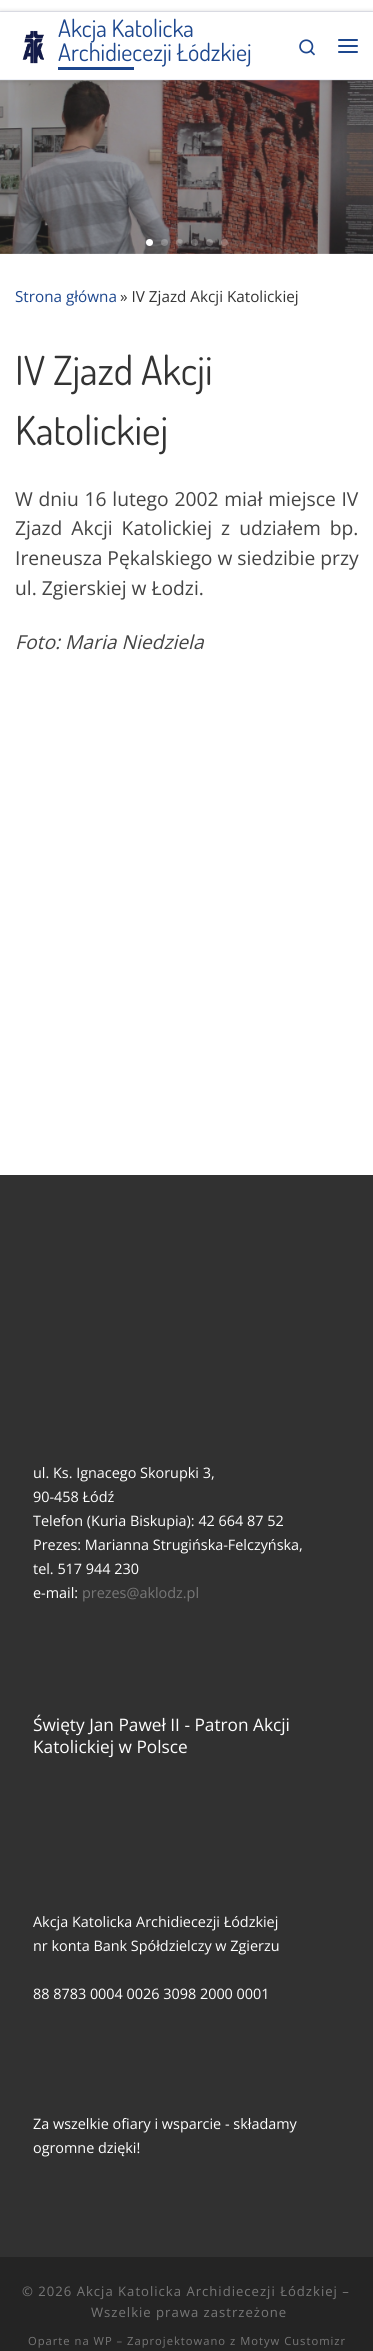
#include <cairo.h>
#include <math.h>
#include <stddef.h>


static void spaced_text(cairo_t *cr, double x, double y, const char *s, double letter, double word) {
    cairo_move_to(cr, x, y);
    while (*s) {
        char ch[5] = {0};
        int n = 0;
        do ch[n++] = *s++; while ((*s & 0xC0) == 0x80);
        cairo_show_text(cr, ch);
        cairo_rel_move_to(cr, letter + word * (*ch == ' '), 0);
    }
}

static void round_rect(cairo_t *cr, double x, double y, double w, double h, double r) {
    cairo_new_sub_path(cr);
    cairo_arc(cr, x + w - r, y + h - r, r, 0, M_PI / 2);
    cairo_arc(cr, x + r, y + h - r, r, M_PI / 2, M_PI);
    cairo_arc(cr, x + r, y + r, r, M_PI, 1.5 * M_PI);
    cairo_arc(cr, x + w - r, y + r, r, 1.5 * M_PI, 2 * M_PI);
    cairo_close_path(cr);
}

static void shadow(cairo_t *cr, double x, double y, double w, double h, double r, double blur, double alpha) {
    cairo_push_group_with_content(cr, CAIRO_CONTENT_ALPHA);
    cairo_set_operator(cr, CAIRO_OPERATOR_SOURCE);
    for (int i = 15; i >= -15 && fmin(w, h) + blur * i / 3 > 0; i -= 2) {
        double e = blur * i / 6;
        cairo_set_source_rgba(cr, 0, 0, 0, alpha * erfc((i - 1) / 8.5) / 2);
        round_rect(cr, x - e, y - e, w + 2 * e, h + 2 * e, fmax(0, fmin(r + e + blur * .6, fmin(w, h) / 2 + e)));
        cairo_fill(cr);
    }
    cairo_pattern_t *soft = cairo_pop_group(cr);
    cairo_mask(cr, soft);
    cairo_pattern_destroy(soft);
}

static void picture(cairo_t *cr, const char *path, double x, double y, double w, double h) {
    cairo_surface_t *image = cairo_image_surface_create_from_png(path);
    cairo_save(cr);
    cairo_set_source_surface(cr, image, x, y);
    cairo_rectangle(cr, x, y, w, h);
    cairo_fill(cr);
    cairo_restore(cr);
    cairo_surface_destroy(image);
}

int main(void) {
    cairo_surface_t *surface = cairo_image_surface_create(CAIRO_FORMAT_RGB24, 373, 2351);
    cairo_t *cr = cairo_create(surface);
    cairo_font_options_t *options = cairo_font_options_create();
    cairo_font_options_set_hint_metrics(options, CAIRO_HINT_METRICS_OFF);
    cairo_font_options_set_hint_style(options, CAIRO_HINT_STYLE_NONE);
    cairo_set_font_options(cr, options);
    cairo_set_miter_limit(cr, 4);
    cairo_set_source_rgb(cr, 1, 1, 1);
    cairo_paint(cr);
    cairo_set_source_rgb(cr, 0.922, 0.933, 0.961);
    cairo_rectangle(cr, 0, 11, 373, 1);
    cairo_fill(cr);
    picture(cr, "img3.png", 0, 80, 373, 174);
    cairo_set_source_rgba(cr, 1, 1, 1, 0.15);
    cairo_rectangle(cr, 0, 80, 373, 1);
    cairo_fill(cr);
    cairo_set_source_rgb(cr, 0, 0, 0);
    shadow(cr, 0, 12, 373, 68, 0, 2.5, 0.2);
    cairo_set_source_rgb(cr, 1, 1, 1);
    cairo_rectangle(cr, 0, 12, 373, 67);
    cairo_fill(cr);
    picture(cr, "img1.png", 22, 30, 22, 34);
    cairo_select_font_face(cr, "Dosis", CAIRO_FONT_SLANT_NORMAL, CAIRO_FONT_WEIGHT_NORMAL);
    cairo_set_font_size(cr, 24);
    cairo_set_source_rgb(cr, 0.114, 0.278, 0.557);
    cairo_move_to(cr, 58, 37);
    cairo_show_text(cr, "Akcja Katolicka");
    cairo_move_to(cr, 58, 61);
    cairo_show_text(cr, "Archidiecezji Łódzkiej");
    cairo_rectangle(cr, 58, 67, 76, 3);
    cairo_fill(cr);
    picture(cr, "img2.png", 299, 39, 16, 17);
    round_rect(cr, 338, 39, 20, 2, 1);
    cairo_fill(cr);
    round_rect(cr, 338, 45, 20, 2, 1);
    cairo_fill(cr);
    round_rect(cr, 338, 51, 20, 2, 1);
    cairo_fill(cr);
    cairo_set_source_rgb(cr, 0.933, 0.945, 0.969);
    cairo_rectangle(cr, 0, 79, 373, 1);
    cairo_fill(cr);
    cairo_set_source_rgb(cr, 1, 1, 1);
    cairo_arc(cr, 149.5, 242.5, 3.5, 0, 2 * M_PI);
    cairo_fill(cr);
    cairo_set_source_rgba(cr, 1, 1, 1, 0.25);
    cairo_arc(cr, 164.5, 242.5, 3.5, 0, 2 * M_PI);
    cairo_fill(cr);
    cairo_arc(cr, 179.5, 242.5, 3.5, 0, 2 * M_PI);
    cairo_fill(cr);
    cairo_arc(cr, 194.5, 242.5, 3.5, 0, 2 * M_PI);
    cairo_fill(cr);
    cairo_arc(cr, 209.5, 242.5, 3.5, 0, 2 * M_PI);
    cairo_fill(cr);
    cairo_arc(cr, 224.5, 242.5, 3.5, 0, 2 * M_PI);
    cairo_fill(cr);
    cairo_select_font_face(cr, "Open Sans", CAIRO_FONT_SLANT_NORMAL, CAIRO_FONT_WEIGHT_NORMAL);
    cairo_set_font_size(cr, 15.25);
    cairo_set_source_rgb(cr, 0.114, 0.278, 0.557);
    cairo_move_to(cr, 15, 302);
    cairo_show_text(cr, "Strona główna");
    cairo_set_source_rgb(cr, 0.2, 0.2, 0.2);
    cairo_move_to(cr, 120, 302);
    cairo_show_text(cr, "» IV Zjazd Akcji Katolickiej");
    cairo_select_font_face(cr, "Dosis", CAIRO_FONT_SLANT_NORMAL, CAIRO_FONT_WEIGHT_NORMAL);
    cairo_set_font_size(cr, 40);
    cairo_move_to(cr, 15, 385);
    cairo_show_text(cr, "IV Zjazd Akcji");
    cairo_move_to(cr, 15, 445);
    cairo_show_text(cr, "Katolickiej");
    cairo_select_font_face(cr, "Open Sans", CAIRO_FONT_SLANT_NORMAL, CAIRO_FONT_WEIGHT_NORMAL);
    cairo_set_font_size(cr, 19.25);
    cairo_set_source_rgb(cr, 0.267, 0.267, 0.267);
    spaced_text(cr, 15, 506, "W dniu 16 lutego 2002 miał miejsce IV", 0, 0.75);
    spaced_text(cr, 15, 535, "Zjazd Akcji Katolickiej z udziałem bp.", 0, 4);
    cairo_move_to(cr, 15, 565);
    cairo_show_text(cr, "Ireneusza Pękalskiego w siedzibie przy");
    cairo_move_to(cr, 15, 595);
    cairo_show_text(cr, "ul. Zgierskiej w Łodzi.");
    cairo_select_font_face(cr, "Open Sans", CAIRO_FONT_SLANT_ITALIC, CAIRO_FONT_WEIGHT_NORMAL);
    cairo_move_to(cr, 15, 649);
    cairo_show_text(cr, "Foto: Maria Niedziela");
    cairo_set_source_rgb(cr, 0.192, 0.192, 0.192);
    cairo_rectangle(cr, 0, 1175, 373, 1082);
    cairo_fill(cr);
    cairo_select_font_face(cr, "Open Sans", CAIRO_FONT_SLANT_NORMAL, CAIRO_FONT_WEIGHT_NORMAL);
    cairo_set_font_size(cr, 14.4);
    cairo_set_source_rgb(cr, 1, 1, 1);
    cairo_move_to(cr, 33, 1478);
    cairo_show_text(cr, "ul. Ks. Ignacego Skorupki 3,");
    cairo_move_to(cr, 33, 1502);
    cairo_show_text(cr, "90-458 Łódź");
    cairo_move_to(cr, 33, 1526);
    cairo_show_text(cr, "Telefon (Kuria Biskupia): 42 664 87 52");
    cairo_move_to(cr, 33, 1550);
    cairo_show_text(cr, "Prezes: Marianna Strugińska-Felczyńska,");
    cairo_move_to(cr, 33, 1574);
    cairo_show_text(cr, "tel. 517 944 230");
    cairo_move_to(cr, 33, 1598);
    cairo_show_text(cr, "e-mail:");
    cairo_set_source_rgb(cr, 0.467, 0.467, 0.467);
    cairo_move_to(cr, 82, 1598);
    cairo_show_text(cr, "prezes@aklodz.pl");
    cairo_set_font_size(cr, 17.25);
    cairo_set_source_rgb(cr, 1, 1, 1);
    cairo_move_to(cr, 33, 1731);
    cairo_show_text(cr, "Święty Jan Paweł II - Patron Akcji");
    cairo_move_to(cr, 33, 1753);
    cairo_show_text(cr, "Katolickiej w Polsce");
    cairo_set_font_size(cr, 14.4);
    cairo_move_to(cr, 33, 1927);
    cairo_show_text(cr, "Akcja Katolicka Archidiecezji Łódzkiej");
    cairo_move_to(cr, 33, 1951);
    cairo_show_text(cr, "nr konta Bank Spółdzielczy w Zgierzu");
    cairo_move_to(cr, 33, 1999);
    cairo_show_text(cr, "88 8783 0004 0026 3098 2000 0001");
    cairo_move_to(cr, 33, 2129);
    cairo_show_text(cr, "Za wszelkie ofiary i wsparcie - składamy");
    cairo_move_to(cr, 33, 2153);
    cairo_show_text(cr, "ogromne dzięki!");
    cairo_set_source_rgb(cr, 0.141, 0.141, 0.141);
    cairo_rectangle(cr, 0, 2257, 373, 94);
    cairo_fill(cr);
    cairo_set_font_size(cr, 13.1);
    cairo_set_source_rgb(cr, 0.467, 0.467, 0.467);
    spaced_text(cr, 22, 2296, "© 2026 Akcja Katolicka Archidiecezji Łódzkiej –", 1, 0);
    spaced_text(cr, 91, 2317, "Wszelkie prawa zastrzeżone", 1, 0);
    cairo_set_font_size(cr, 11.2);
    spaced_text(cr, 28, 2345, "Oparte na WP – Zaprojektowano z Motyw Customizr", 1, 0);
    cairo_surface_write_to_png(surface, "page.png");
    cairo_font_options_destroy(options);
    cairo_destroy(cr);
    cairo_surface_destroy(surface);
    return 0;
}
